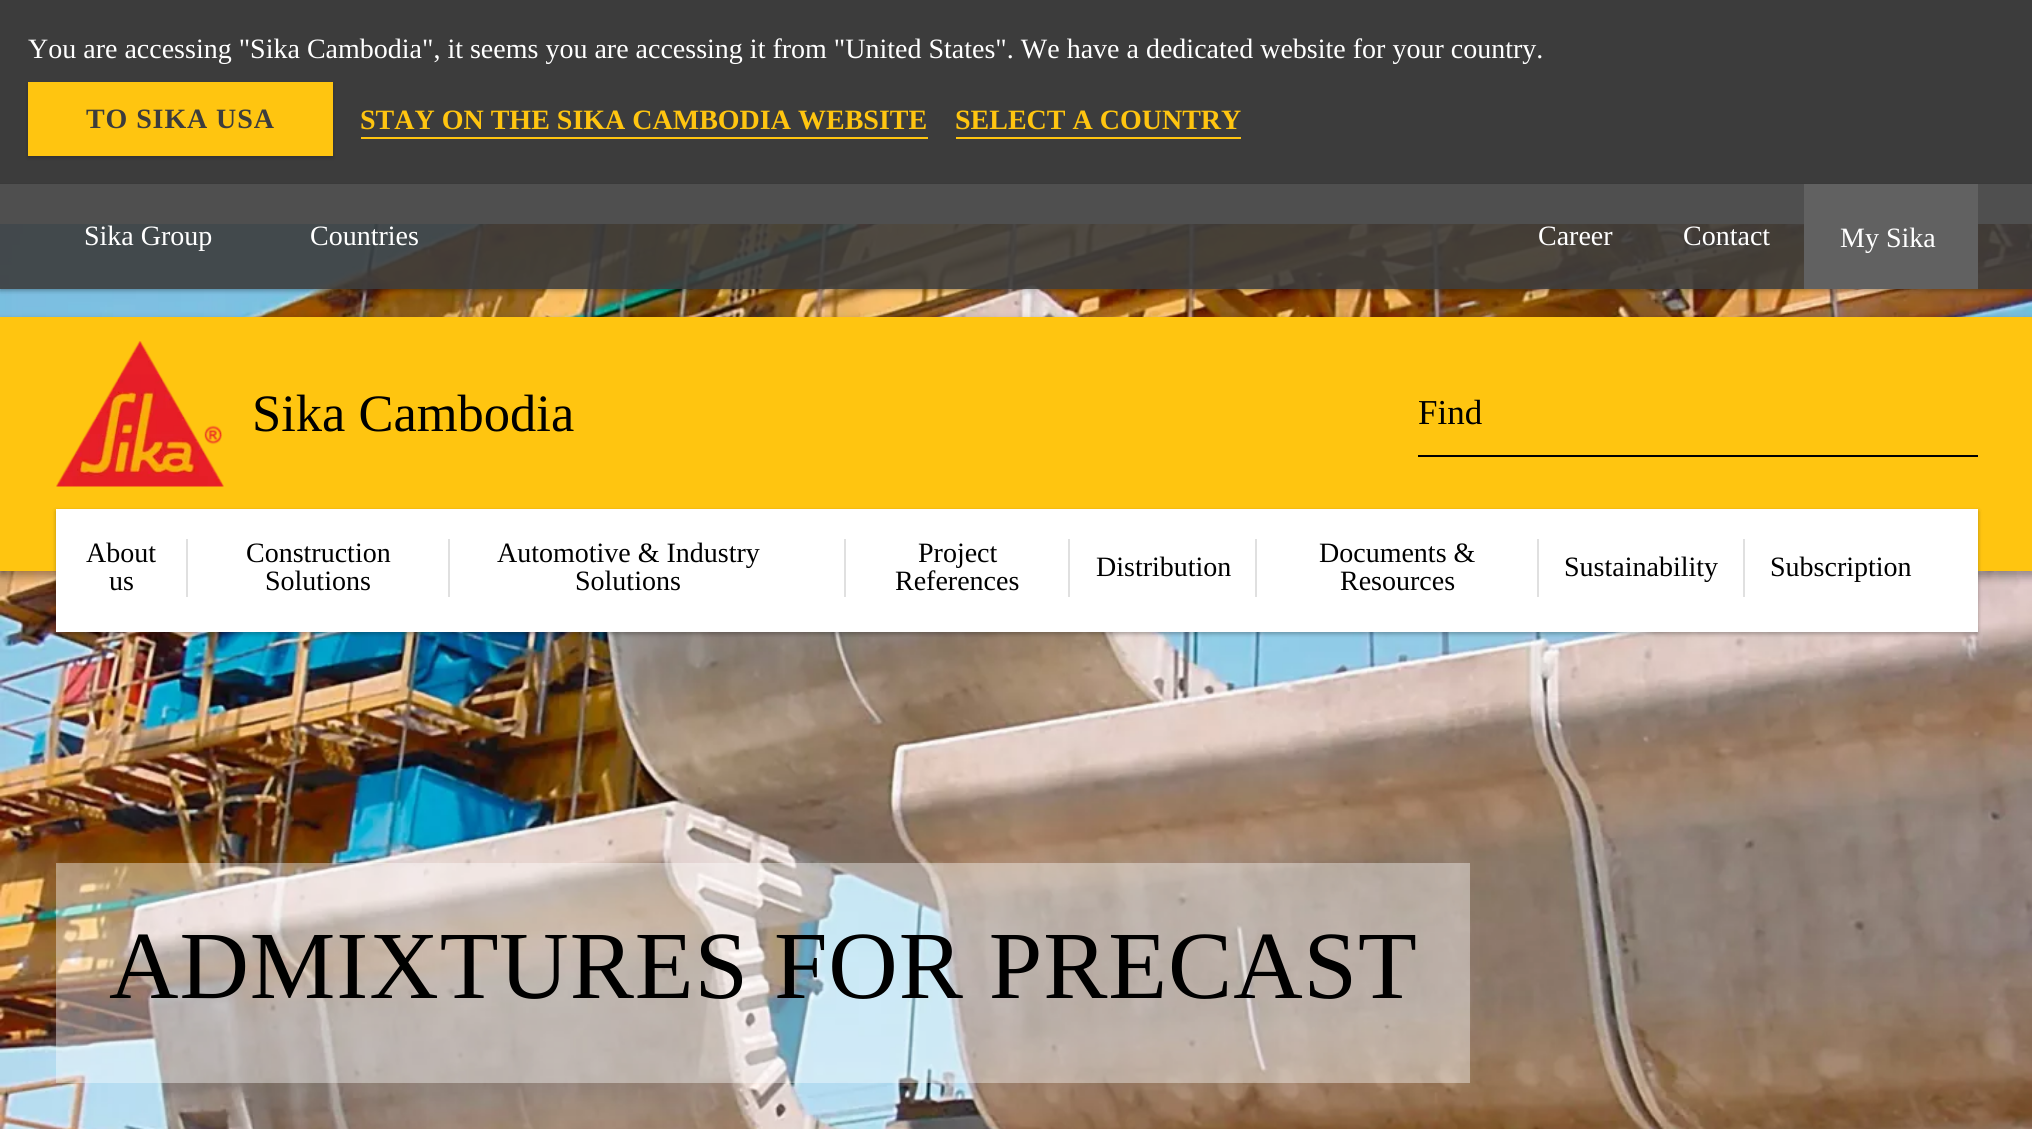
#include <cairo.h>
#include <math.h>
#include <stddef.h>


static void spaced_text(cairo_t *cr, double x, double y, const char *s, double letter, double word) {
    cairo_move_to(cr, x, y);
    while (*s) {
        char ch[5] = {0};
        int n = 0;
        do ch[n++] = *s++; while ((*s & 0xC0) == 0x80);
        cairo_show_text(cr, ch);
        cairo_rel_move_to(cr, letter + word * (*ch == ' '), 0);
    }
}

static void round_rect(cairo_t *cr, double x, double y, double w, double h, double r) {
    cairo_new_sub_path(cr);
    cairo_arc(cr, x + w - r, y + h - r, r, 0, M_PI / 2);
    cairo_arc(cr, x + r, y + h - r, r, M_PI / 2, M_PI);
    cairo_arc(cr, x + r, y + r, r, M_PI, 1.5 * M_PI);
    cairo_arc(cr, x + w - r, y + r, r, 1.5 * M_PI, 2 * M_PI);
    cairo_close_path(cr);
}

static void shadow(cairo_t *cr, double x, double y, double w, double h, double r, double blur, double alpha) {
    cairo_push_group_with_content(cr, CAIRO_CONTENT_ALPHA);
    cairo_set_operator(cr, CAIRO_OPERATOR_SOURCE);
    for (int i = 15; i >= -15 && fmin(w, h) + blur * i / 3 > 0; i -= 2) {
        double e = blur * i / 6;
        cairo_set_source_rgba(cr, 0, 0, 0, alpha * erfc((i - 1) / 8.5) / 2);
        round_rect(cr, x - e, y - e, w + 2 * e, h + 2 * e, fmax(0, fmin(r + e + blur * .6, fmin(w, h) / 2 + e)));
        cairo_fill(cr);
    }
    cairo_pattern_t *soft = cairo_pop_group(cr);
    cairo_mask(cr, soft);
    cairo_pattern_destroy(soft);
}

static void picture(cairo_t *cr, const char *path, double x, double y, double w, double h) {
    cairo_surface_t *image = cairo_image_surface_create_from_png(path);
    cairo_save(cr);
    cairo_set_source_surface(cr, image, x, y);
    cairo_rectangle(cr, x, y, w, h);
    cairo_fill(cr);
    cairo_restore(cr);
    cairo_surface_destroy(image);
}

int main(void) {
    cairo_surface_t *surface = cairo_image_surface_create(CAIRO_FORMAT_RGB24, 2032, 1129);
    cairo_t *cr = cairo_create(surface);
    cairo_font_options_t *options = cairo_font_options_create();
    cairo_font_options_set_hint_metrics(options, CAIRO_HINT_METRICS_OFF);
    cairo_font_options_set_hint_style(options, CAIRO_HINT_STYLE_NONE);
    cairo_set_font_options(cr, options);
    cairo_set_miter_limit(cr, 4);
    cairo_set_source_rgb(cr, 1, 1, 1);
    cairo_paint(cr);
    cairo_set_source_rgb(cr, 0.235, 0.235, 0.235);
    cairo_rectangle(cr, 0, 0, 2032, 184);
    cairo_fill(cr);
    cairo_select_font_face(cr, "Liberation Serif", CAIRO_FONT_SLANT_NORMAL, CAIRO_FONT_WEIGHT_NORMAL);
    cairo_set_font_size(cr, 28);
    cairo_set_source_rgb(cr, 1, 1, 1);
    cairo_move_to(cr, 28, 58);
    cairo_show_text(cr, "You are accessing \"Sika Cambodia\", it seems you are accessing it from \"United States\". We have a dedicated website for your country.");
    cairo_set_source_rgb(cr, 0, 0, 0);
    shadow(cr, 28, 84, 305, 74, 0, 2, 0.2);
    cairo_set_source_rgb(cr, 1, 0.773, 0.063);
    cairo_rectangle(cr, 28, 82, 305, 74);
    cairo_fill(cr);
    cairo_select_font_face(cr, "Liberation Serif", CAIRO_FONT_SLANT_NORMAL, CAIRO_FONT_WEIGHT_BOLD);
    cairo_set_source_rgb(cr, 0.235, 0.235, 0.235);
    spaced_text(cr, 86, 128, "TO SIKA USA", 0.9, 0);
    cairo_set_source_rgb(cr, 1, 0.773, 0.063);
    cairo_move_to(cr, 360, 129);
    cairo_show_text(cr, "STAY ON THE SIKA CAMBODIA WEBSITE");
    cairo_rectangle(cr, 361, 137, 567, 2);
    cairo_fill(cr);
    cairo_move_to(cr, 955, 129);
    cairo_show_text(cr, "SELECT A COUNTRY");
    cairo_rectangle(cr, 956, 137, 285, 2);
    cairo_fill(cr);
    picture(cr, "img2.png", 0, 224, 2032, 905);
    cairo_save(cr);
    cairo_set_fill_rule(cr, CAIRO_FILL_RULE_EVEN_ODD);
    cairo_new_path(cr);
    cairo_move_to(cr, 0, 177);
    cairo_line_to(cr, 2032, 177);
    cairo_line_to(cr, 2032, 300);
    cairo_line_to(cr, 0, 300);
    cairo_close_path(cr);
    cairo_move_to(cr, 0, 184);
    cairo_line_to(cr, 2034, 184);
    cairo_line_to(cr, 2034, 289);
    cairo_line_to(cr, 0, 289);
    cairo_close_path(cr);
    cairo_clip(cr);
    cairo_set_source_rgb(cr, 0, 0, 0);
    shadow(cr, 0, 186, 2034, 105, 0, 2.5, 0.1);
    cairo_restore(cr);
    cairo_save(cr);
    cairo_set_fill_rule(cr, CAIRO_FILL_RULE_EVEN_ODD);
    cairo_new_path(cr);
    cairo_move_to(cr, 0, 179);
    cairo_line_to(cr, 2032, 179);
    cairo_line_to(cr, 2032, 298);
    cairo_line_to(cr, 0, 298);
    cairo_close_path(cr);
    cairo_move_to(cr, 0, 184);
    cairo_line_to(cr, 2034, 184);
    cairo_line_to(cr, 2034, 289);
    cairo_line_to(cr, 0, 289);
    cairo_close_path(cr);
    cairo_clip(cr);
    cairo_set_source_rgb(cr, 0, 0, 0);
    shadow(cr, 0, 186, 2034, 105, 0, 2, 0.2);
    cairo_restore(cr);
    cairo_set_source_rgba(cr, 0.235, 0.235, 0.235, 0.9);
    cairo_rectangle(cr, 0, 184, 2032, 105);
    cairo_fill(cr);
    cairo_select_font_face(cr, "Liberation Serif", CAIRO_FONT_SLANT_NORMAL, CAIRO_FONT_WEIGHT_NORMAL);
    cairo_set_source_rgb(cr, 1, 1, 1);
    cairo_move_to(cr, 84, 245);
    cairo_show_text(cr, "Sika Group");
    cairo_move_to(cr, 310, 245);
    cairo_show_text(cr, "Countries");
    cairo_move_to(cr, 1538, 245);
    cairo_show_text(cr, "Career");
    cairo_move_to(cr, 1683, 245);
    cairo_show_text(cr, "Contact");
    cairo_set_source_rgb(cr, 0.38, 0.38, 0.38);
    cairo_rectangle(cr, 1804, 184, 174, 105);
    cairo_fill(cr);
    cairo_set_source_rgb(cr, 1, 1, 1);
    cairo_move_to(cr, 1840, 247);
    cairo_show_text(cr, "My Sika");
    cairo_set_source_rgb(cr, 0, 0, 0);
    shadow(cr, 0, 322, 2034, 254, 0, 5, 0.23);
    shadow(cr, 0, 322, 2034, 254, 0, 5, 0.16);
    cairo_set_source_rgb(cr, 1, 0.773, 0.063);
    cairo_rectangle(cr, 0, 317, 2032, 254);
    cairo_fill(cr);
    picture(cr, "img1.png", 56, 341, 168, 146);
    cairo_set_font_size(cr, 52.5);
    cairo_set_source_rgb(cr, 0, 0, 0);
    cairo_move_to(cr, 252, 431);
    cairo_show_text(cr, "Sika Cambodia");
    cairo_rectangle(cr, 1418, 455, 560, 2);
    cairo_fill(cr);
    cairo_set_font_size(cr, 35);
    cairo_move_to(cr, 1418, 424);
    cairo_show_text(cr, "Find");
    cairo_set_source_rgb(cr, 0, 0, 0);
    shadow(cr, 56, 511, 1922, 123, 0, 2.5, 0.1);
    shadow(cr, 56, 511, 1922, 123, 0, 2, 0.2);
    cairo_set_source_rgb(cr, 1, 1, 1);
    cairo_rectangle(cr, 56, 509, 1922, 123);
    cairo_fill(cr);
    cairo_set_font_size(cr, 28);
    cairo_set_source_rgb(cr, 0, 0, 0);
    cairo_move_to(cr, 86, 562);
    cairo_show_text(cr, "About");
    cairo_set_source_rgb(cr, 0.878, 0.878, 0.878);
    cairo_rectangle(cr, 186, 539, 2, 58);
    cairo_fill(cr);
    cairo_set_source_rgb(cr, 0, 0, 0);
    cairo_move_to(cr, 109, 590);
    cairo_show_text(cr, "us");
    cairo_move_to(cr, 246, 562);
    cairo_show_text(cr, "Construction");
    cairo_set_source_rgb(cr, 0.878, 0.878, 0.878);
    cairo_rectangle(cr, 448, 539, 2, 58);
    cairo_fill(cr);
    cairo_set_source_rgb(cr, 0, 0, 0);
    cairo_move_to(cr, 265, 590);
    cairo_show_text(cr, "Solutions");
    cairo_move_to(cr, 497, 562);
    cairo_show_text(cr, "Automotive & Industry");
    cairo_set_source_rgb(cr, 0.878, 0.878, 0.878);
    cairo_rectangle(cr, 844, 539, 2, 58);
    cairo_fill(cr);
    cairo_set_source_rgb(cr, 0, 0, 0);
    cairo_move_to(cr, 575, 590);
    cairo_show_text(cr, "Solutions");
    cairo_move_to(cr, 918, 562);
    cairo_show_text(cr, "Project");
    cairo_set_source_rgb(cr, 0.878, 0.878, 0.878);
    cairo_rectangle(cr, 1068, 539, 2, 58);
    cairo_fill(cr);
    cairo_set_source_rgb(cr, 0, 0, 0);
    cairo_move_to(cr, 895, 590);
    cairo_show_text(cr, "References");
    cairo_move_to(cr, 1096, 576);
    cairo_show_text(cr, "Distribution");
    cairo_set_source_rgb(cr, 0.878, 0.878, 0.878);
    cairo_rectangle(cr, 1255, 539, 2, 58);
    cairo_fill(cr);
    cairo_set_source_rgb(cr, 0, 0, 0);
    cairo_move_to(cr, 1319, 562);
    cairo_show_text(cr, "Documents &");
    cairo_set_source_rgb(cr, 0.878, 0.878, 0.878);
    cairo_rectangle(cr, 1537, 539, 2, 58);
    cairo_fill(cr);
    cairo_set_source_rgb(cr, 0, 0, 0);
    cairo_move_to(cr, 1340, 590);
    cairo_show_text(cr, "Resources");
    cairo_move_to(cr, 1564, 576);
    cairo_show_text(cr, "Sustainability");
    cairo_set_source_rgb(cr, 0.878, 0.878, 0.878);
    cairo_rectangle(cr, 1743, 539, 2, 58);
    cairo_fill(cr);
    cairo_set_source_rgb(cr, 0, 0, 0);
    cairo_move_to(cr, 1770, 576);
    cairo_show_text(cr, "Subscription");
    cairo_set_source_rgba(cr, 1, 1, 1, 0.4);
    cairo_rectangle(cr, 56, 863, 1414, 220);
    cairo_fill(cr);
    cairo_set_font_size(cr, 96.25);
    cairo_set_source_rgb(cr, 0, 0, 0);
    spaced_text(cr, 109, 998, "ADMIXTURES FOR PRECAST", 0.9, 0);
    cairo_surface_write_to_png(surface, "page.png");
    cairo_font_options_destroy(options);
    cairo_destroy(cr);
    cairo_surface_destroy(surface);
    return 0;
}
